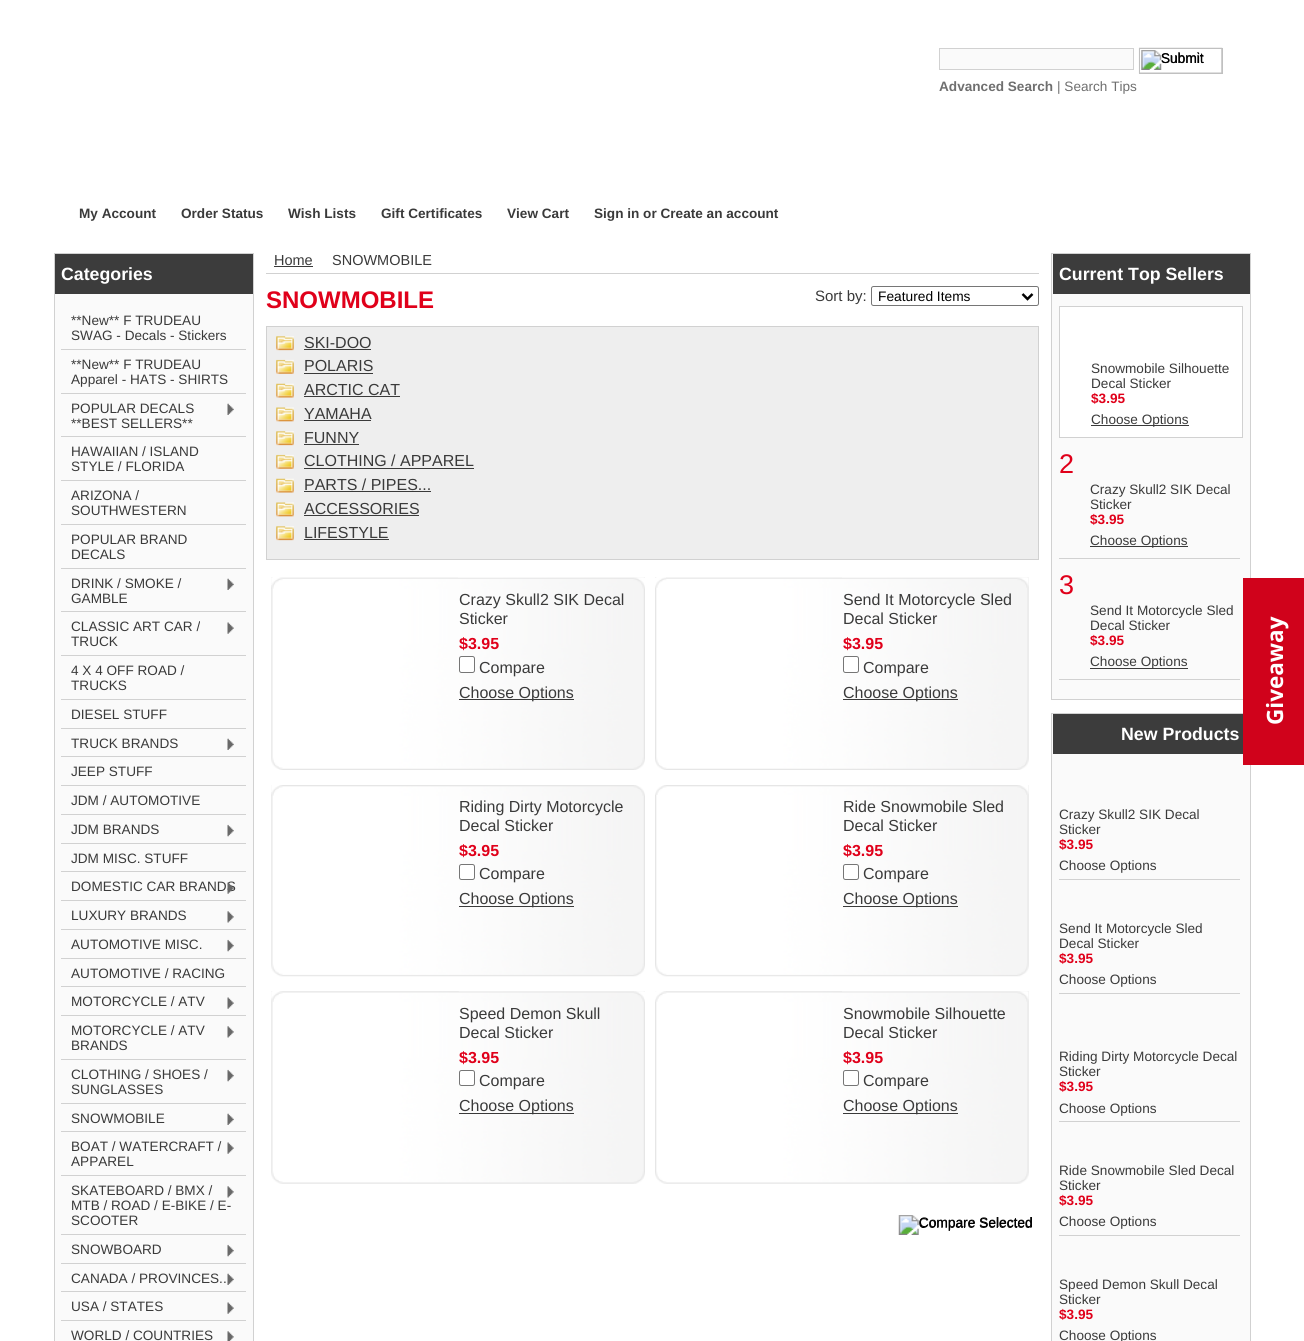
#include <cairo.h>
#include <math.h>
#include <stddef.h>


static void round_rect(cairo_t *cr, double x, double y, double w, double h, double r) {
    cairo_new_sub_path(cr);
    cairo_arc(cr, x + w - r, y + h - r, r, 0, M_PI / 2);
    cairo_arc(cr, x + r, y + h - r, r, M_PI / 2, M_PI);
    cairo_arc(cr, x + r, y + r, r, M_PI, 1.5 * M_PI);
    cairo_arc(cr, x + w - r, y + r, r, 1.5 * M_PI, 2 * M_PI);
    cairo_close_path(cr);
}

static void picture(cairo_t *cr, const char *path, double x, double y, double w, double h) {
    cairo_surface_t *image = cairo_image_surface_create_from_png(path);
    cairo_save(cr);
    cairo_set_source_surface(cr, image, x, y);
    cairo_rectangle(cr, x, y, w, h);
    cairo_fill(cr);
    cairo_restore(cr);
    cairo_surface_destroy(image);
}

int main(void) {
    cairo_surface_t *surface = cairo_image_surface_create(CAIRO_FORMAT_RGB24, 1304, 1341);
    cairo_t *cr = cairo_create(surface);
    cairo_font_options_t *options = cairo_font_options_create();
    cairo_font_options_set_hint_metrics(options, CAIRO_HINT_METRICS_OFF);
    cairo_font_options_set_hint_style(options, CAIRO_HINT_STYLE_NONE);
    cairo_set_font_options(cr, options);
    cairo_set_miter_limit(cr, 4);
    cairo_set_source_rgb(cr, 1, 1, 1);
    cairo_paint(cr);
    cairo_set_source_rgb(cr, 0.98, 0.98, 0.98);
    cairo_rectangle(cr, 939.5, 48.5, 194, 21);
    cairo_fill_preserve(cr);
    cairo_set_source_rgb(cr, 0.82, 0.82, 0.82);
    cairo_set_line_width(cr, 1);
    cairo_stroke(cr);
    picture(cr, "img1.png", 1138, 47, 85, 27);
    cairo_rectangle(cr, 1139.5, 48.5, 83, 25);
    cairo_set_source_rgb(cr, 0.753, 0.753, 0.753);
    cairo_stroke(cr);
    cairo_select_font_face(cr, "Liberation Sans", CAIRO_FONT_SLANT_NORMAL, CAIRO_FONT_WEIGHT_NORMAL);
    cairo_set_font_size(cr, 13.75);
    cairo_set_source_rgb(cr, 0, 0, 0);
    cairo_move_to(cr, 1161, 63);
    cairo_show_text(cr, "Submit");
    cairo_select_font_face(cr, "Liberation Sans", CAIRO_FONT_SLANT_NORMAL, CAIRO_FONT_WEIGHT_BOLD);
    cairo_set_font_size(cr, 13.6);
    cairo_set_source_rgb(cr, 0.435, 0.435, 0.435);
    cairo_move_to(cr, 939, 91);
    cairo_show_text(cr, "Advanced Search");
    cairo_select_font_face(cr, "Liberation Sans", CAIRO_FONT_SLANT_NORMAL, CAIRO_FONT_WEIGHT_NORMAL);
    cairo_move_to(cr, 1057, 91);
    cairo_show_text(cr, "| Search Tips");
    cairo_select_font_face(cr, "Liberation Sans", CAIRO_FONT_SLANT_NORMAL, CAIRO_FONT_WEIGHT_BOLD);
    cairo_set_source_rgb(cr, 0.227, 0.227, 0.227);
    cairo_move_to(cr, 79, 218);
    cairo_show_text(cr, "My Account");
    cairo_move_to(cr, 181, 218);
    cairo_show_text(cr, "Order Status");
    cairo_move_to(cr, 288, 218);
    cairo_show_text(cr, "Wish Lists");
    cairo_move_to(cr, 381, 218);
    cairo_show_text(cr, "Gift Certificates");
    cairo_move_to(cr, 507, 218);
    cairo_show_text(cr, "View Cart");
    cairo_move_to(cr, 594, 218);
    cairo_show_text(cr, "Sign in or Create an account");
    cairo_set_source_rgb(cr, 0.98, 0.98, 0.98);
    cairo_rectangle(cr, 55, 294, 198, 1047);
    cairo_fill(cr);
    cairo_rectangle(cr, 54.5, 253.5, 199, 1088);
    cairo_set_source_rgb(cr, 0.82, 0.82, 0.82);
    cairo_stroke(cr);
    cairo_set_source_rgb(cr, 0.235, 0.235, 0.235);
    cairo_rectangle(cr, 55, 254, 198, 40);
    cairo_fill(cr);
    cairo_set_font_size(cr, 17.75);
    cairo_set_source_rgb(cr, 1, 1, 1);
    cairo_move_to(cr, 61, 280);
    cairo_show_text(cr, "Categories");
    cairo_set_source_rgb(cr, 0.82, 0.82, 0.82);
    cairo_rectangle(cr, 61, 349, 185, 1);
    cairo_fill(cr);
    cairo_select_font_face(cr, "Liberation Sans", CAIRO_FONT_SLANT_NORMAL, CAIRO_FONT_WEIGHT_NORMAL);
    cairo_set_font_size(cr, 13.6);
    cairo_set_source_rgb(cr, 0.227, 0.227, 0.227);
    cairo_move_to(cr, 71, 325);
    cairo_show_text(cr, "**New** F TRUDEAU");
    cairo_move_to(cr, 71, 340);
    cairo_show_text(cr, "SWAG - Decals - Stickers");
    cairo_set_source_rgb(cr, 0.82, 0.82, 0.82);
    cairo_rectangle(cr, 61, 393, 185, 1);
    cairo_fill(cr);
    cairo_set_source_rgb(cr, 0.227, 0.227, 0.227);
    cairo_move_to(cr, 71, 369);
    cairo_show_text(cr, "**New** F TRUDEAU");
    cairo_move_to(cr, 71, 384);
    cairo_show_text(cr, "Apparel - HATS - SHIRTS");
    cairo_set_source_rgb(cr, 0.82, 0.82, 0.82);
    cairo_rectangle(cr, 61, 436, 185, 1);
    cairo_fill(cr);
    cairo_set_source_rgb(cr, 0.227, 0.227, 0.227);
    cairo_move_to(cr, 71, 413);
    cairo_show_text(cr, "POPULAR DECALS");
    picture(cr, "img2.png", 227, 403, 7, 12);
    cairo_move_to(cr, 71, 428);
    cairo_show_text(cr, "**BEST SELLERS**");
    cairo_set_source_rgb(cr, 0.82, 0.82, 0.82);
    cairo_rectangle(cr, 61, 480, 185, 1);
    cairo_fill(cr);
    cairo_set_source_rgb(cr, 0.227, 0.227, 0.227);
    cairo_move_to(cr, 71, 456);
    cairo_show_text(cr, "HAWAIIAN / ISLAND");
    cairo_move_to(cr, 71, 471);
    cairo_show_text(cr, "STYLE / FLORIDA");
    cairo_set_source_rgb(cr, 0.82, 0.82, 0.82);
    cairo_rectangle(cr, 61, 524, 185, 1);
    cairo_fill(cr);
    cairo_set_source_rgb(cr, 0.227, 0.227, 0.227);
    cairo_move_to(cr, 71, 500);
    cairo_show_text(cr, "ARIZONA /");
    cairo_move_to(cr, 71, 515);
    cairo_show_text(cr, "SOUTHWESTERN");
    cairo_set_source_rgb(cr, 0.82, 0.82, 0.82);
    cairo_rectangle(cr, 61, 568, 185, 1);
    cairo_fill(cr);
    cairo_set_source_rgb(cr, 0.227, 0.227, 0.227);
    cairo_move_to(cr, 71, 544);
    cairo_show_text(cr, "POPULAR BRAND");
    cairo_move_to(cr, 71, 559);
    cairo_show_text(cr, "DECALS");
    cairo_set_source_rgb(cr, 0.82, 0.82, 0.82);
    cairo_rectangle(cr, 61, 611, 185, 1);
    cairo_fill(cr);
    cairo_set_source_rgb(cr, 0.227, 0.227, 0.227);
    cairo_move_to(cr, 71, 588);
    cairo_show_text(cr, "DRINK / SMOKE /");
    picture(cr, "img2.png", 227, 578, 7, 12);
    cairo_move_to(cr, 71, 603);
    cairo_show_text(cr, "GAMBLE");
    cairo_set_source_rgb(cr, 0.82, 0.82, 0.82);
    cairo_rectangle(cr, 61, 655, 185, 1);
    cairo_fill(cr);
    cairo_set_source_rgb(cr, 0.227, 0.227, 0.227);
    cairo_move_to(cr, 71, 631);
    cairo_show_text(cr, "CLASSIC ART CAR /");
    picture(cr, "img3.png", 227, 622, 7, 12);
    cairo_move_to(cr, 71, 646);
    cairo_show_text(cr, "TRUCK");
    cairo_set_source_rgb(cr, 0.82, 0.82, 0.82);
    cairo_rectangle(cr, 61, 699, 185, 1);
    cairo_fill(cr);
    cairo_set_source_rgb(cr, 0.227, 0.227, 0.227);
    cairo_move_to(cr, 71, 675);
    cairo_show_text(cr, "4 X 4 OFF ROAD /");
    cairo_move_to(cr, 71, 690);
    cairo_show_text(cr, "TRUCKS");
    cairo_set_source_rgb(cr, 0.82, 0.82, 0.82);
    cairo_rectangle(cr, 61, 728, 185, 1);
    cairo_fill(cr);
    cairo_set_source_rgb(cr, 0.227, 0.227, 0.227);
    cairo_move_to(cr, 71, 719);
    cairo_show_text(cr, "DIESEL STUFF");
    cairo_set_source_rgb(cr, 0.82, 0.82, 0.82);
    cairo_rectangle(cr, 61, 756, 185, 1);
    cairo_fill(cr);
    cairo_set_source_rgb(cr, 0.227, 0.227, 0.227);
    cairo_move_to(cr, 71, 748);
    cairo_show_text(cr, "TRUCK BRANDS");
    picture(cr, "img2.png", 227, 738, 7, 12);
    cairo_set_source_rgb(cr, 0.82, 0.82, 0.82);
    cairo_rectangle(cr, 61, 785, 185, 1);
    cairo_fill(cr);
    cairo_set_source_rgb(cr, 0.227, 0.227, 0.227);
    cairo_move_to(cr, 71, 776);
    cairo_show_text(cr, "JEEP STUFF");
    cairo_set_source_rgb(cr, 0.82, 0.82, 0.82);
    cairo_rectangle(cr, 61, 814, 185, 1);
    cairo_fill(cr);
    cairo_set_source_rgb(cr, 0.227, 0.227, 0.227);
    cairo_move_to(cr, 71, 805);
    cairo_show_text(cr, "JDM / AUTOMOTIVE");
    cairo_set_source_rgb(cr, 0.82, 0.82, 0.82);
    cairo_rectangle(cr, 61, 843, 185, 1);
    cairo_fill(cr);
    cairo_set_source_rgb(cr, 0.227, 0.227, 0.227);
    cairo_move_to(cr, 71, 834);
    cairo_show_text(cr, "JDM BRANDS");
    picture(cr, "img4.png", 227, 824, 7, 13);
    cairo_set_source_rgb(cr, 0.82, 0.82, 0.82);
    cairo_rectangle(cr, 61, 871, 185, 1);
    cairo_fill(cr);
    cairo_set_source_rgb(cr, 0.227, 0.227, 0.227);
    cairo_move_to(cr, 71, 863);
    cairo_show_text(cr, "JDM MISC. STUFF");
    cairo_set_source_rgb(cr, 0.82, 0.82, 0.82);
    cairo_rectangle(cr, 61, 900, 185, 1);
    cairo_fill(cr);
    cairo_set_source_rgb(cr, 0.227, 0.227, 0.227);
    cairo_move_to(cr, 71, 891);
    cairo_show_text(cr, "DOMESTIC CAR BRANDS");
    picture(cr, "img5.png", 227, 882, 7, 12);
    cairo_set_source_rgb(cr, 0.82, 0.82, 0.82);
    cairo_rectangle(cr, 61, 929, 185, 1);
    cairo_fill(cr);
    cairo_set_source_rgb(cr, 0.227, 0.227, 0.227);
    cairo_move_to(cr, 71, 920);
    cairo_show_text(cr, "LUXURY BRANDS");
    picture(cr, "img6.png", 227, 911, 7, 12);
    cairo_set_source_rgb(cr, 0.82, 0.82, 0.82);
    cairo_rectangle(cr, 61, 958, 185, 1);
    cairo_fill(cr);
    cairo_set_source_rgb(cr, 0.227, 0.227, 0.227);
    cairo_move_to(cr, 71, 949);
    cairo_show_text(cr, "AUTOMOTIVE MISC.");
    picture(cr, "img4.png", 227, 939, 7, 13);
    cairo_set_source_rgb(cr, 0.82, 0.82, 0.82);
    cairo_rectangle(cr, 61, 986, 185, 1);
    cairo_fill(cr);
    cairo_set_source_rgb(cr, 0.227, 0.227, 0.227);
    cairo_move_to(cr, 71, 978);
    cairo_show_text(cr, "AUTOMOTIVE / RACING");
    cairo_set_source_rgb(cr, 0.82, 0.82, 0.82);
    cairo_rectangle(cr, 61, 1015, 185, 1);
    cairo_fill(cr);
    cairo_set_source_rgb(cr, 0.227, 0.227, 0.227);
    cairo_move_to(cr, 71, 1006);
    cairo_show_text(cr, "MOTORCYCLE / ATV");
    picture(cr, "img3.png", 227, 997, 7, 12);
    cairo_set_source_rgb(cr, 0.82, 0.82, 0.82);
    cairo_rectangle(cr, 61, 1059, 185, 1);
    cairo_fill(cr);
    cairo_set_source_rgb(cr, 0.227, 0.227, 0.227);
    cairo_move_to(cr, 71, 1035);
    cairo_show_text(cr, "MOTORCYCLE / ATV");
    picture(cr, "img7.png", 227, 1026, 7, 12);
    cairo_move_to(cr, 71, 1050);
    cairo_show_text(cr, "BRANDS");
    cairo_set_source_rgb(cr, 0.82, 0.82, 0.82);
    cairo_rectangle(cr, 61, 1103, 185, 1);
    cairo_fill(cr);
    cairo_set_source_rgb(cr, 0.227, 0.227, 0.227);
    cairo_move_to(cr, 71, 1079);
    cairo_show_text(cr, "CLOTHING / SHOES /");
    picture(cr, "img4.png", 227, 1069, 7, 13);
    cairo_move_to(cr, 71, 1094);
    cairo_show_text(cr, "SUNGLASSES");
    cairo_set_source_rgb(cr, 0.82, 0.82, 0.82);
    cairo_rectangle(cr, 61, 1131, 185, 1);
    cairo_fill(cr);
    cairo_set_source_rgb(cr, 0.227, 0.227, 0.227);
    cairo_move_to(cr, 71, 1123);
    cairo_show_text(cr, "SNOWMOBILE");
    picture(cr, "img2.png", 227, 1113, 7, 12);
    cairo_set_source_rgb(cr, 0.82, 0.82, 0.82);
    cairo_rectangle(cr, 61, 1175, 185, 1);
    cairo_fill(cr);
    cairo_set_source_rgb(cr, 0.227, 0.227, 0.227);
    cairo_move_to(cr, 71, 1151);
    cairo_show_text(cr, "BOAT / WATERCRAFT /");
    picture(cr, "img3.png", 227, 1142, 7, 12);
    cairo_move_to(cr, 71, 1166);
    cairo_show_text(cr, "APPAREL");
    cairo_set_source_rgb(cr, 0.82, 0.82, 0.82);
    cairo_rectangle(cr, 61, 1234, 185, 1);
    cairo_fill(cr);
    cairo_set_source_rgb(cr, 0.227, 0.227, 0.227);
    cairo_move_to(cr, 71, 1195);
    cairo_show_text(cr, "SKATEBOARD / BMX /");
    picture(cr, "img6.png", 227, 1186, 7, 12);
    cairo_move_to(cr, 71, 1210);
    cairo_show_text(cr, "MTB / ROAD / E-BIKE / E-");
    cairo_move_to(cr, 71, 1225);
    cairo_show_text(cr, "SCOOTER");
    cairo_set_source_rgb(cr, 0.82, 0.82, 0.82);
    cairo_rectangle(cr, 61, 1263, 185, 1);
    cairo_fill(cr);
    cairo_set_source_rgb(cr, 0.227, 0.227, 0.227);
    cairo_move_to(cr, 71, 1254);
    cairo_show_text(cr, "SNOWBOARD");
    picture(cr, "img4.png", 227, 1244, 7, 13);
    cairo_set_source_rgb(cr, 0.82, 0.82, 0.82);
    cairo_rectangle(cr, 61, 1291, 185, 1);
    cairo_fill(cr);
    cairo_set_source_rgb(cr, 0.227, 0.227, 0.227);
    cairo_move_to(cr, 71, 1283);
    cairo_show_text(cr, "CANADA / PROVINCES..");
    picture(cr, "img8.png", 227, 1273, 7, 12);
    cairo_set_source_rgb(cr, 0.82, 0.82, 0.82);
    cairo_rectangle(cr, 61, 1320, 185, 1);
    cairo_fill(cr);
    cairo_set_source_rgb(cr, 0.227, 0.227, 0.227);
    cairo_move_to(cr, 71, 1311);
    cairo_show_text(cr, "USA / STATES");
    picture(cr, "img3.png", 227, 1302, 7, 12);
    cairo_move_to(cr, 71, 1340);
    cairo_show_text(cr, "WORLD / COUNTRIES");
    picture(cr, "img9.png", 227, 1331, 7, 10);
    cairo_set_source_rgb(cr, 0.82, 0.82, 0.82);
    cairo_rectangle(cr, 266, 273, 773, 1);
    cairo_fill(cr);
    cairo_set_font_size(cr, 14.5);
    cairo_set_source_rgb(cr, 0.227, 0.227, 0.227);
    cairo_move_to(cr, 274, 265);
    cairo_show_text(cr, "Home");
    cairo_rectangle(cr, 274, 266, 39, 1);
    cairo_fill(cr);
    cairo_move_to(cr, 332, 265);
    cairo_show_text(cr, "SNOWMOBILE");
    cairo_select_font_face(cr, "Liberation Sans", CAIRO_FONT_SLANT_NORMAL, CAIRO_FONT_WEIGHT_BOLD);
    cairo_set_font_size(cr, 24);
    cairo_set_source_rgb(cr, 0.878, 0, 0.102);
    cairo_move_to(cr, 266, 308);
    cairo_show_text(cr, "SNOWMOBILE");
    cairo_select_font_face(cr, "Liberation Sans", CAIRO_FONT_SLANT_NORMAL, CAIRO_FONT_WEIGHT_NORMAL);
    cairo_set_font_size(cr, 15);
    cairo_set_source_rgb(cr, 0.227, 0.227, 0.227);
    cairo_move_to(cr, 815, 301);
    cairo_show_text(cr, "Sort by:");
    round_rect(cr, 871.5, 286.5, 167, 19, 2);
    cairo_set_source_rgb(cr, 0.463, 0.463, 0.463);
    cairo_stroke(cr);
    cairo_new_path(cr);
    cairo_move_to(cr, 1022.5, 294);
    cairo_line_to(cr, 1027.5, 299);
    cairo_line_to(cr, 1032.5, 294);
    cairo_set_source_rgb(cr, 0, 0, 0);
    cairo_set_line_width(cr, 2.5);
    cairo_stroke(cr);
    cairo_set_font_size(cr, 13.75);
    cairo_move_to(cr, 878, 301);
    cairo_show_text(cr, "Featured Items");
    cairo_set_source_rgb(cr, 0.933, 0.933, 0.933);
    cairo_rectangle(cr, 266.5, 326.5, 772, 233);
    cairo_fill_preserve(cr);
    cairo_set_source_rgb(cr, 0.82, 0.82, 0.82);
    cairo_set_line_width(cr, 1);
    cairo_stroke(cr);
    picture(cr, "img10.png", 276, 336, 18, 15);
    cairo_set_font_size(cr, 16);
    cairo_set_source_rgb(cr, 0.227, 0.227, 0.227);
    cairo_move_to(cr, 304, 348);
    cairo_show_text(cr, "SKI-DOO");
    cairo_rectangle(cr, 304, 349, 67, 1);
    cairo_fill(cr);
    picture(cr, "img11.png", 276, 359, 18, 15);
    cairo_move_to(cr, 304, 371);
    cairo_show_text(cr, "POLARIS");
    cairo_rectangle(cr, 304, 373, 69, 1);
    cairo_fill(cr);
    picture(cr, "img12.png", 276, 383, 18, 15);
    cairo_move_to(cr, 304, 395);
    cairo_show_text(cr, "ARCTIC CAT");
    cairo_rectangle(cr, 304, 396, 96, 1);
    cairo_fill(cr);
    picture(cr, "img13.png", 276, 407, 18, 15);
    cairo_move_to(cr, 304, 419);
    cairo_show_text(cr, "YAMAHA");
    cairo_rectangle(cr, 304, 420, 67, 1);
    cairo_fill(cr);
    picture(cr, "img10.png", 276, 431, 18, 15);
    cairo_move_to(cr, 304, 443);
    cairo_show_text(cr, "FUNNY");
    cairo_rectangle(cr, 304, 444, 55, 1);
    cairo_fill(cr);
    picture(cr, "img11.png", 276, 454, 18, 15);
    cairo_move_to(cr, 304, 466);
    cairo_show_text(cr, "CLOTHING / APPAREL");
    cairo_rectangle(cr, 304, 468, 170, 1);
    cairo_fill(cr);
    picture(cr, "img12.png", 276, 478, 18, 15);
    cairo_move_to(cr, 304, 490);
    cairo_show_text(cr, "PARTS / PIPES...");
    cairo_rectangle(cr, 304, 491, 127, 1);
    cairo_fill(cr);
    picture(cr, "img13.png", 276, 502, 18, 15);
    cairo_move_to(cr, 304, 514);
    cairo_show_text(cr, "ACCESSORIES");
    cairo_rectangle(cr, 304, 515, 115, 1);
    cairo_fill(cr);
    picture(cr, "img10.png", 276, 526, 18, 15);
    cairo_move_to(cr, 304, 538);
    cairo_show_text(cr, "LIFESTYLE");
    cairo_rectangle(cr, 304, 539, 85, 1);
    cairo_fill(cr);
    picture(cr, "img14.png", 271, 577, 374, 193);
    picture(cr, "img16.png", 271, 577, 374, 12);
    picture(cr, "img15.png", 271, 577, 187, 8);
    cairo_move_to(cr, 459, 605);
    cairo_show_text(cr, "Crazy Skull2 SIK Decal");
    cairo_move_to(cr, 459, 624);
    cairo_show_text(cr, "Sticker");
    cairo_select_font_face(cr, "Liberation Sans", CAIRO_FONT_SLANT_NORMAL, CAIRO_FONT_WEIGHT_BOLD);
    cairo_set_source_rgb(cr, 0.878, 0, 0.102);
    cairo_move_to(cr, 459, 649);
    cairo_show_text(cr, "$3.95");
    cairo_set_source_rgb(cr, 1, 1, 1);
    round_rect(cr, 459.5, 656.5, 15, 16, 2);
    cairo_fill_preserve(cr);
    cairo_set_source_rgb(cr, 0.463, 0.463, 0.463);
    cairo_stroke(cr);
    cairo_select_font_face(cr, "Liberation Sans", CAIRO_FONT_SLANT_NORMAL, CAIRO_FONT_WEIGHT_NORMAL);
    cairo_set_source_rgb(cr, 0.227, 0.227, 0.227);
    cairo_move_to(cr, 479, 673);
    cairo_show_text(cr, "Compare");
    cairo_rectangle(cr, 459, 699, 115, 1);
    cairo_fill(cr);
    cairo_move_to(cr, 459, 698);
    cairo_show_text(cr, "Choose Options");
    picture(cr, "img17.png", 655, 577, 374, 193);
    picture(cr, "img18.png", 655, 577, 374, 11);
    cairo_set_source_rgb(cr, 0.957, 0.957, 0.957);
    cairo_rectangle(cr, 666, 577, 176, 1);
    cairo_fill(cr);
    cairo_set_source_rgb(cr, 0.227, 0.227, 0.227);
    cairo_move_to(cr, 843, 605);
    cairo_show_text(cr, "Send It Motorcycle Sled");
    cairo_move_to(cr, 843, 624);
    cairo_show_text(cr, "Decal Sticker");
    cairo_select_font_face(cr, "Liberation Sans", CAIRO_FONT_SLANT_NORMAL, CAIRO_FONT_WEIGHT_BOLD);
    cairo_set_source_rgb(cr, 0.878, 0, 0.102);
    cairo_move_to(cr, 843, 649);
    cairo_show_text(cr, "$3.95");
    cairo_set_source_rgb(cr, 1, 1, 1);
    round_rect(cr, 843.5, 656.5, 15, 16, 2);
    cairo_fill_preserve(cr);
    cairo_set_source_rgb(cr, 0.463, 0.463, 0.463);
    cairo_stroke(cr);
    cairo_select_font_face(cr, "Liberation Sans", CAIRO_FONT_SLANT_NORMAL, CAIRO_FONT_WEIGHT_NORMAL);
    cairo_set_source_rgb(cr, 0.227, 0.227, 0.227);
    cairo_move_to(cr, 863, 673);
    cairo_show_text(cr, "Compare");
    cairo_rectangle(cr, 843, 699, 115, 1);
    cairo_fill(cr);
    cairo_move_to(cr, 843, 698);
    cairo_show_text(cr, "Choose Options");
    picture(cr, "img19.png", 271, 792, 374, 185);
    picture(cr, "img20.png", 271, 785, 374, 11);
    cairo_set_source_rgb(cr, 0.984, 0.984, 0.984);
    cairo_rectangle(cr, 271, 785, 1, 7);
    cairo_fill(cr);
    cairo_set_source_rgb(cr, 0.227, 0.227, 0.227);
    cairo_move_to(cr, 459, 812);
    cairo_show_text(cr, "Riding Dirty Motorcycle");
    cairo_move_to(cr, 459, 831);
    cairo_show_text(cr, "Decal Sticker");
    cairo_select_font_face(cr, "Liberation Sans", CAIRO_FONT_SLANT_NORMAL, CAIRO_FONT_WEIGHT_BOLD);
    cairo_set_source_rgb(cr, 0.878, 0, 0.102);
    cairo_move_to(cr, 459, 856);
    cairo_show_text(cr, "$3.95");
    cairo_set_source_rgb(cr, 1, 1, 1);
    round_rect(cr, 459.5, 864.5, 15, 15, 2);
    cairo_fill_preserve(cr);
    cairo_set_source_rgb(cr, 0.463, 0.463, 0.463);
    cairo_stroke(cr);
    cairo_select_font_face(cr, "Liberation Sans", CAIRO_FONT_SLANT_NORMAL, CAIRO_FONT_WEIGHT_NORMAL);
    cairo_set_source_rgb(cr, 0.227, 0.227, 0.227);
    cairo_move_to(cr, 479, 879);
    cairo_show_text(cr, "Compare");
    cairo_rectangle(cr, 459, 906, 115, 1);
    cairo_fill(cr);
    cairo_move_to(cr, 459, 904);
    cairo_show_text(cr, "Choose Options");
    picture(cr, "img21.png", 655, 785, 374, 192);
    picture(cr, "img22.png", 655, 785, 374, 10);
    cairo_move_to(cr, 843, 812);
    cairo_show_text(cr, "Ride Snowmobile Sled");
    cairo_move_to(cr, 843, 831);
    cairo_show_text(cr, "Decal Sticker");
    cairo_select_font_face(cr, "Liberation Sans", CAIRO_FONT_SLANT_NORMAL, CAIRO_FONT_WEIGHT_BOLD);
    cairo_set_source_rgb(cr, 0.878, 0, 0.102);
    cairo_move_to(cr, 843, 856);
    cairo_show_text(cr, "$3.95");
    cairo_set_source_rgb(cr, 1, 1, 1);
    round_rect(cr, 843.5, 864.5, 15, 15, 2);
    cairo_fill_preserve(cr);
    cairo_set_source_rgb(cr, 0.463, 0.463, 0.463);
    cairo_stroke(cr);
    cairo_select_font_face(cr, "Liberation Sans", CAIRO_FONT_SLANT_NORMAL, CAIRO_FONT_WEIGHT_NORMAL);
    cairo_set_source_rgb(cr, 0.227, 0.227, 0.227);
    cairo_move_to(cr, 863, 879);
    cairo_show_text(cr, "Compare");
    cairo_rectangle(cr, 843, 906, 115, 1);
    cairo_fill(cr);
    cairo_move_to(cr, 843, 904);
    cairo_show_text(cr, "Choose Options");
    picture(cr, "img23.png", 271, 991, 374, 193);
    picture(cr, "img25.png", 271, 991, 374, 11);
    picture(cr, "img24.png", 271, 991, 188, 7);
    cairo_move_to(cr, 459, 1019);
    cairo_show_text(cr, "Speed Demon Skull");
    cairo_move_to(cr, 459, 1038);
    cairo_show_text(cr, "Decal Sticker");
    cairo_select_font_face(cr, "Liberation Sans", CAIRO_FONT_SLANT_NORMAL, CAIRO_FONT_WEIGHT_BOLD);
    cairo_set_source_rgb(cr, 0.878, 0, 0.102);
    cairo_move_to(cr, 459, 1063);
    cairo_show_text(cr, "$3.95");
    cairo_set_source_rgb(cr, 1, 1, 1);
    round_rect(cr, 459.5, 1070.5, 15, 15, 2);
    cairo_fill_preserve(cr);
    cairo_set_source_rgb(cr, 0.463, 0.463, 0.463);
    cairo_stroke(cr);
    cairo_select_font_face(cr, "Liberation Sans", CAIRO_FONT_SLANT_NORMAL, CAIRO_FONT_WEIGHT_NORMAL);
    cairo_set_source_rgb(cr, 0.227, 0.227, 0.227);
    cairo_move_to(cr, 479, 1086);
    cairo_show_text(cr, "Compare");
    cairo_rectangle(cr, 459, 1113, 115, 1);
    cairo_fill(cr);
    cairo_move_to(cr, 459, 1111);
    cairo_show_text(cr, "Choose Options");
    picture(cr, "img26.png", 655, 991, 374, 193);
    picture(cr, "img28.png", 655, 991, 374, 11);
    picture(cr, "img27.png", 655, 991, 187, 1);
    cairo_move_to(cr, 843, 1019);
    cairo_show_text(cr, "Snowmobile Silhouette");
    cairo_move_to(cr, 843, 1038);
    cairo_show_text(cr, "Decal Sticker");
    cairo_select_font_face(cr, "Liberation Sans", CAIRO_FONT_SLANT_NORMAL, CAIRO_FONT_WEIGHT_BOLD);
    cairo_set_source_rgb(cr, 0.878, 0, 0.102);
    cairo_move_to(cr, 843, 1063);
    cairo_show_text(cr, "$3.95");
    cairo_set_source_rgb(cr, 1, 1, 1);
    round_rect(cr, 843.5, 1070.5, 15, 15, 2);
    cairo_fill_preserve(cr);
    cairo_set_source_rgb(cr, 0.463, 0.463, 0.463);
    cairo_stroke(cr);
    cairo_select_font_face(cr, "Liberation Sans", CAIRO_FONT_SLANT_NORMAL, CAIRO_FONT_WEIGHT_NORMAL);
    cairo_set_source_rgb(cr, 0.227, 0.227, 0.227);
    cairo_move_to(cr, 863, 1086);
    cairo_show_text(cr, "Compare");
    cairo_rectangle(cr, 843, 1113, 115, 1);
    cairo_fill(cr);
    cairo_move_to(cr, 843, 1111);
    cairo_show_text(cr, "Choose Options");
    picture(cr, "img29.png", 898, 1215, 134, 20);
    cairo_set_font_size(cr, 13.75);
    cairo_set_source_rgb(cr, 0, 0, 0);
    cairo_move_to(cr, 919, 1227);
    cairo_show_text(cr, "Compare Selected");
    cairo_set_source_rgb(cr, 0.98, 0.98, 0.98);
    cairo_rectangle(cr, 1051.5, 253.5, 199, 446);
    cairo_fill_preserve(cr);
    cairo_set_source_rgb(cr, 0.82, 0.82, 0.82);
    cairo_stroke(cr);
    cairo_set_source_rgb(cr, 0.235, 0.235, 0.235);
    cairo_rectangle(cr, 1053, 254, 197, 40);
    cairo_fill(cr);
    cairo_select_font_face(cr, "Liberation Sans", CAIRO_FONT_SLANT_NORMAL, CAIRO_FONT_WEIGHT_BOLD);
    cairo_set_font_size(cr, 17.75);
    cairo_set_source_rgb(cr, 1, 1, 1);
    cairo_move_to(cr, 1059, 280);
    cairo_show_text(cr, "Current Top Sellers");
    cairo_rectangle(cr, 1059.5, 306.5, 183, 131);
    cairo_fill_preserve(cr);
    cairo_set_source_rgb(cr, 0.82, 0.82, 0.82);
    cairo_stroke(cr);
    cairo_select_font_face(cr, "Liberation Sans", CAIRO_FONT_SLANT_NORMAL, CAIRO_FONT_WEIGHT_NORMAL);
    cairo_set_font_size(cr, 13.6);
    cairo_set_source_rgb(cr, 0.227, 0.227, 0.227);
    cairo_move_to(cr, 1091, 373);
    cairo_show_text(cr, "Snowmobile Silhouette");
    cairo_move_to(cr, 1091, 388);
    cairo_show_text(cr, "Decal Sticker");
    cairo_select_font_face(cr, "Liberation Sans", CAIRO_FONT_SLANT_NORMAL, CAIRO_FONT_WEIGHT_BOLD);
    cairo_set_source_rgb(cr, 0.878, 0, 0.102);
    cairo_move_to(cr, 1091, 403);
    cairo_show_text(cr, "$3.95");
    cairo_set_source_rgb(cr, 0.227, 0.227, 0.227);
    cairo_rectangle(cr, 1091, 425, 98, 1);
    cairo_fill(cr);
    cairo_select_font_face(cr, "Liberation Sans", CAIRO_FONT_SLANT_NORMAL, CAIRO_FONT_WEIGHT_NORMAL);
    cairo_move_to(cr, 1091, 424);
    cairo_show_text(cr, "Choose Options");
    cairo_set_source_rgb(cr, 0.82, 0.82, 0.82);
    cairo_rectangle(cr, 1059, 558, 181, 1);
    cairo_fill(cr);
    cairo_set_font_size(cr, 27);
    cairo_set_source_rgb(cr, 0.878, 0, 0.102);
    cairo_move_to(cr, 1059, 473);
    cairo_show_text(cr, "2");
    cairo_set_font_size(cr, 13.6);
    cairo_set_source_rgb(cr, 0.227, 0.227, 0.227);
    cairo_move_to(cr, 1090, 494);
    cairo_show_text(cr, "Crazy Skull2 SIK Decal");
    cairo_move_to(cr, 1090, 509);
    cairo_show_text(cr, "Sticker");
    cairo_select_font_face(cr, "Liberation Sans", CAIRO_FONT_SLANT_NORMAL, CAIRO_FONT_WEIGHT_BOLD);
    cairo_set_source_rgb(cr, 0.878, 0, 0.102);
    cairo_move_to(cr, 1090, 524);
    cairo_show_text(cr, "$3.95");
    cairo_set_source_rgb(cr, 0.227, 0.227, 0.227);
    cairo_rectangle(cr, 1090, 546, 98, 1);
    cairo_fill(cr);
    cairo_select_font_face(cr, "Liberation Sans", CAIRO_FONT_SLANT_NORMAL, CAIRO_FONT_WEIGHT_NORMAL);
    cairo_move_to(cr, 1090, 545);
    cairo_show_text(cr, "Choose Options");
    cairo_set_source_rgb(cr, 0.82, 0.82, 0.82);
    cairo_rectangle(cr, 1059, 679, 181, 1);
    cairo_fill(cr);
    cairo_set_font_size(cr, 27);
    cairo_set_source_rgb(cr, 0.878, 0, 0.102);
    cairo_move_to(cr, 1059, 594);
    cairo_show_text(cr, "3");
    cairo_set_font_size(cr, 13.6);
    cairo_set_source_rgb(cr, 0.227, 0.227, 0.227);
    cairo_move_to(cr, 1090, 615);
    cairo_show_text(cr, "Send It Motorcycle Sled");
    cairo_move_to(cr, 1090, 630);
    cairo_show_text(cr, "Decal Sticker");
    cairo_select_font_face(cr, "Liberation Sans", CAIRO_FONT_SLANT_NORMAL, CAIRO_FONT_WEIGHT_BOLD);
    cairo_set_source_rgb(cr, 0.878, 0, 0.102);
    cairo_move_to(cr, 1090, 645);
    cairo_show_text(cr, "$3.95");
    cairo_set_source_rgb(cr, 0.227, 0.227, 0.227);
    cairo_rectangle(cr, 1090, 668, 98, 1);
    cairo_fill(cr);
    cairo_select_font_face(cr, "Liberation Sans", CAIRO_FONT_SLANT_NORMAL, CAIRO_FONT_WEIGHT_NORMAL);
    cairo_move_to(cr, 1090, 666);
    cairo_show_text(cr, "Choose Options");
    cairo_set_source_rgb(cr, 0.98, 0.98, 0.98);
    cairo_rectangle(cr, 1051.5, 713.5, 199, 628);
    cairo_fill_preserve(cr);
    cairo_set_source_rgb(cr, 0.82, 0.82, 0.82);
    cairo_stroke(cr);
    cairo_set_source_rgb(cr, 0.235, 0.235, 0.235);
    cairo_rectangle(cr, 1053, 714, 190, 40);
    cairo_fill(cr);
    cairo_select_font_face(cr, "Liberation Sans", CAIRO_FONT_SLANT_NORMAL, CAIRO_FONT_WEIGHT_BOLD);
    cairo_set_font_size(cr, 17.75);
    cairo_set_source_rgb(cr, 1, 1, 1);
    cairo_move_to(cr, 1121, 740);
    cairo_show_text(cr, "New Products");
    cairo_set_source_rgb(cr, 0.82, 0.82, 0.82);
    cairo_rectangle(cr, 1059, 879, 181, 1);
    cairo_fill(cr);
    cairo_select_font_face(cr, "Liberation Sans", CAIRO_FONT_SLANT_NORMAL, CAIRO_FONT_WEIGHT_NORMAL);
    cairo_set_font_size(cr, 13.6);
    cairo_set_source_rgb(cr, 0.227, 0.227, 0.227);
    cairo_move_to(cr, 1059, 819);
    cairo_show_text(cr, "Crazy Skull2 SIK Decal");
    cairo_move_to(cr, 1059, 834);
    cairo_show_text(cr, "Sticker");
    cairo_select_font_face(cr, "Liberation Sans", CAIRO_FONT_SLANT_NORMAL, CAIRO_FONT_WEIGHT_BOLD);
    cairo_set_source_rgb(cr, 0.878, 0, 0.102);
    cairo_move_to(cr, 1059, 849);
    cairo_show_text(cr, "$3.95");
    cairo_select_font_face(cr, "Liberation Sans", CAIRO_FONT_SLANT_NORMAL, CAIRO_FONT_WEIGHT_NORMAL);
    cairo_set_source_rgb(cr, 0.227, 0.227, 0.227);
    cairo_move_to(cr, 1059, 870);
    cairo_show_text(cr, "Choose Options");
    cairo_set_source_rgb(cr, 0.82, 0.82, 0.82);
    cairo_rectangle(cr, 1059, 993, 181, 1);
    cairo_fill(cr);
    cairo_set_source_rgb(cr, 0.227, 0.227, 0.227);
    cairo_move_to(cr, 1059, 933);
    cairo_show_text(cr, "Send It Motorcycle Sled");
    cairo_move_to(cr, 1059, 948);
    cairo_show_text(cr, "Decal Sticker");
    cairo_select_font_face(cr, "Liberation Sans", CAIRO_FONT_SLANT_NORMAL, CAIRO_FONT_WEIGHT_BOLD);
    cairo_set_source_rgb(cr, 0.878, 0, 0.102);
    cairo_move_to(cr, 1059, 963);
    cairo_show_text(cr, "$3.95");
    cairo_select_font_face(cr, "Liberation Sans", CAIRO_FONT_SLANT_NORMAL, CAIRO_FONT_WEIGHT_NORMAL);
    cairo_set_source_rgb(cr, 0.227, 0.227, 0.227);
    cairo_move_to(cr, 1059, 984);
    cairo_show_text(cr, "Choose Options");
    cairo_set_source_rgb(cr, 0.82, 0.82, 0.82);
    cairo_rectangle(cr, 1059, 1121, 181, 1);
    cairo_fill(cr);
    cairo_set_source_rgb(cr, 0.227, 0.227, 0.227);
    cairo_move_to(cr, 1059, 1061);
    cairo_show_text(cr, "Riding Dirty Motorcycle Decal");
    cairo_move_to(cr, 1059, 1076);
    cairo_show_text(cr, "Sticker");
    cairo_select_font_face(cr, "Liberation Sans", CAIRO_FONT_SLANT_NORMAL, CAIRO_FONT_WEIGHT_BOLD);
    cairo_set_source_rgb(cr, 0.878, 0, 0.102);
    cairo_move_to(cr, 1059, 1091);
    cairo_show_text(cr, "$3.95");
    cairo_select_font_face(cr, "Liberation Sans", CAIRO_FONT_SLANT_NORMAL, CAIRO_FONT_WEIGHT_NORMAL);
    cairo_set_source_rgb(cr, 0.227, 0.227, 0.227);
    cairo_move_to(cr, 1059, 1113);
    cairo_show_text(cr, "Choose Options");
    cairo_set_source_rgb(cr, 0.82, 0.82, 0.82);
    cairo_rectangle(cr, 1059, 1235, 181, 1);
    cairo_fill(cr);
    cairo_set_source_rgb(cr, 0.227, 0.227, 0.227);
    cairo_move_to(cr, 1059, 1175);
    cairo_show_text(cr, "Ride Snowmobile Sled Decal");
    cairo_move_to(cr, 1059, 1190);
    cairo_show_text(cr, "Sticker");
    cairo_select_font_face(cr, "Liberation Sans", CAIRO_FONT_SLANT_NORMAL, CAIRO_FONT_WEIGHT_BOLD);
    cairo_set_source_rgb(cr, 0.878, 0, 0.102);
    cairo_move_to(cr, 1059, 1205);
    cairo_show_text(cr, "$3.95");
    cairo_select_font_face(cr, "Liberation Sans", CAIRO_FONT_SLANT_NORMAL, CAIRO_FONT_WEIGHT_NORMAL);
    cairo_set_source_rgb(cr, 0.227, 0.227, 0.227);
    cairo_move_to(cr, 1059, 1226);
    cairo_show_text(cr, "Choose Options");
    cairo_move_to(cr, 1059, 1289);
    cairo_show_text(cr, "Speed Demon Skull Decal");
    cairo_move_to(cr, 1059, 1304);
    cairo_show_text(cr, "Sticker");
    cairo_select_font_face(cr, "Liberation Sans", CAIRO_FONT_SLANT_NORMAL, CAIRO_FONT_WEIGHT_BOLD);
    cairo_set_source_rgb(cr, 0.878, 0, 0.102);
    cairo_move_to(cr, 1059, 1319);
    cairo_show_text(cr, "$3.95");
    cairo_select_font_face(cr, "Liberation Sans", CAIRO_FONT_SLANT_NORMAL, CAIRO_FONT_WEIGHT_NORMAL);
    cairo_set_source_rgb(cr, 0.227, 0.227, 0.227);
    cairo_move_to(cr, 1059, 1340);
    cairo_show_text(cr, "Choose Options");
    cairo_set_source_rgb(cr, 0.816, 0.008, 0.106);
    cairo_rectangle(cr, 1243, 578, 61, 187);
    cairo_fill(cr);
    cairo_select_font_face(cr, "Open Sans", CAIRO_FONT_SLANT_NORMAL, CAIRO_FONT_WEIGHT_BOLD);
    cairo_set_font_size(cr, 22.5);
    cairo_set_source_rgb(cr, 1, 1, 1);
    cairo_save(cr);
    cairo_translate(cr, 1283, 725);
    cairo_rotate(cr, -90 * M_PI / 180);
    cairo_move_to(cr, 0, 0);
    cairo_show_text(cr, "Giveaway");
    cairo_restore(cr);
    cairo_surface_write_to_png(surface, "page.png");
    cairo_font_options_destroy(options);
    cairo_destroy(cr);
    cairo_surface_destroy(surface);
    return 0;
}
